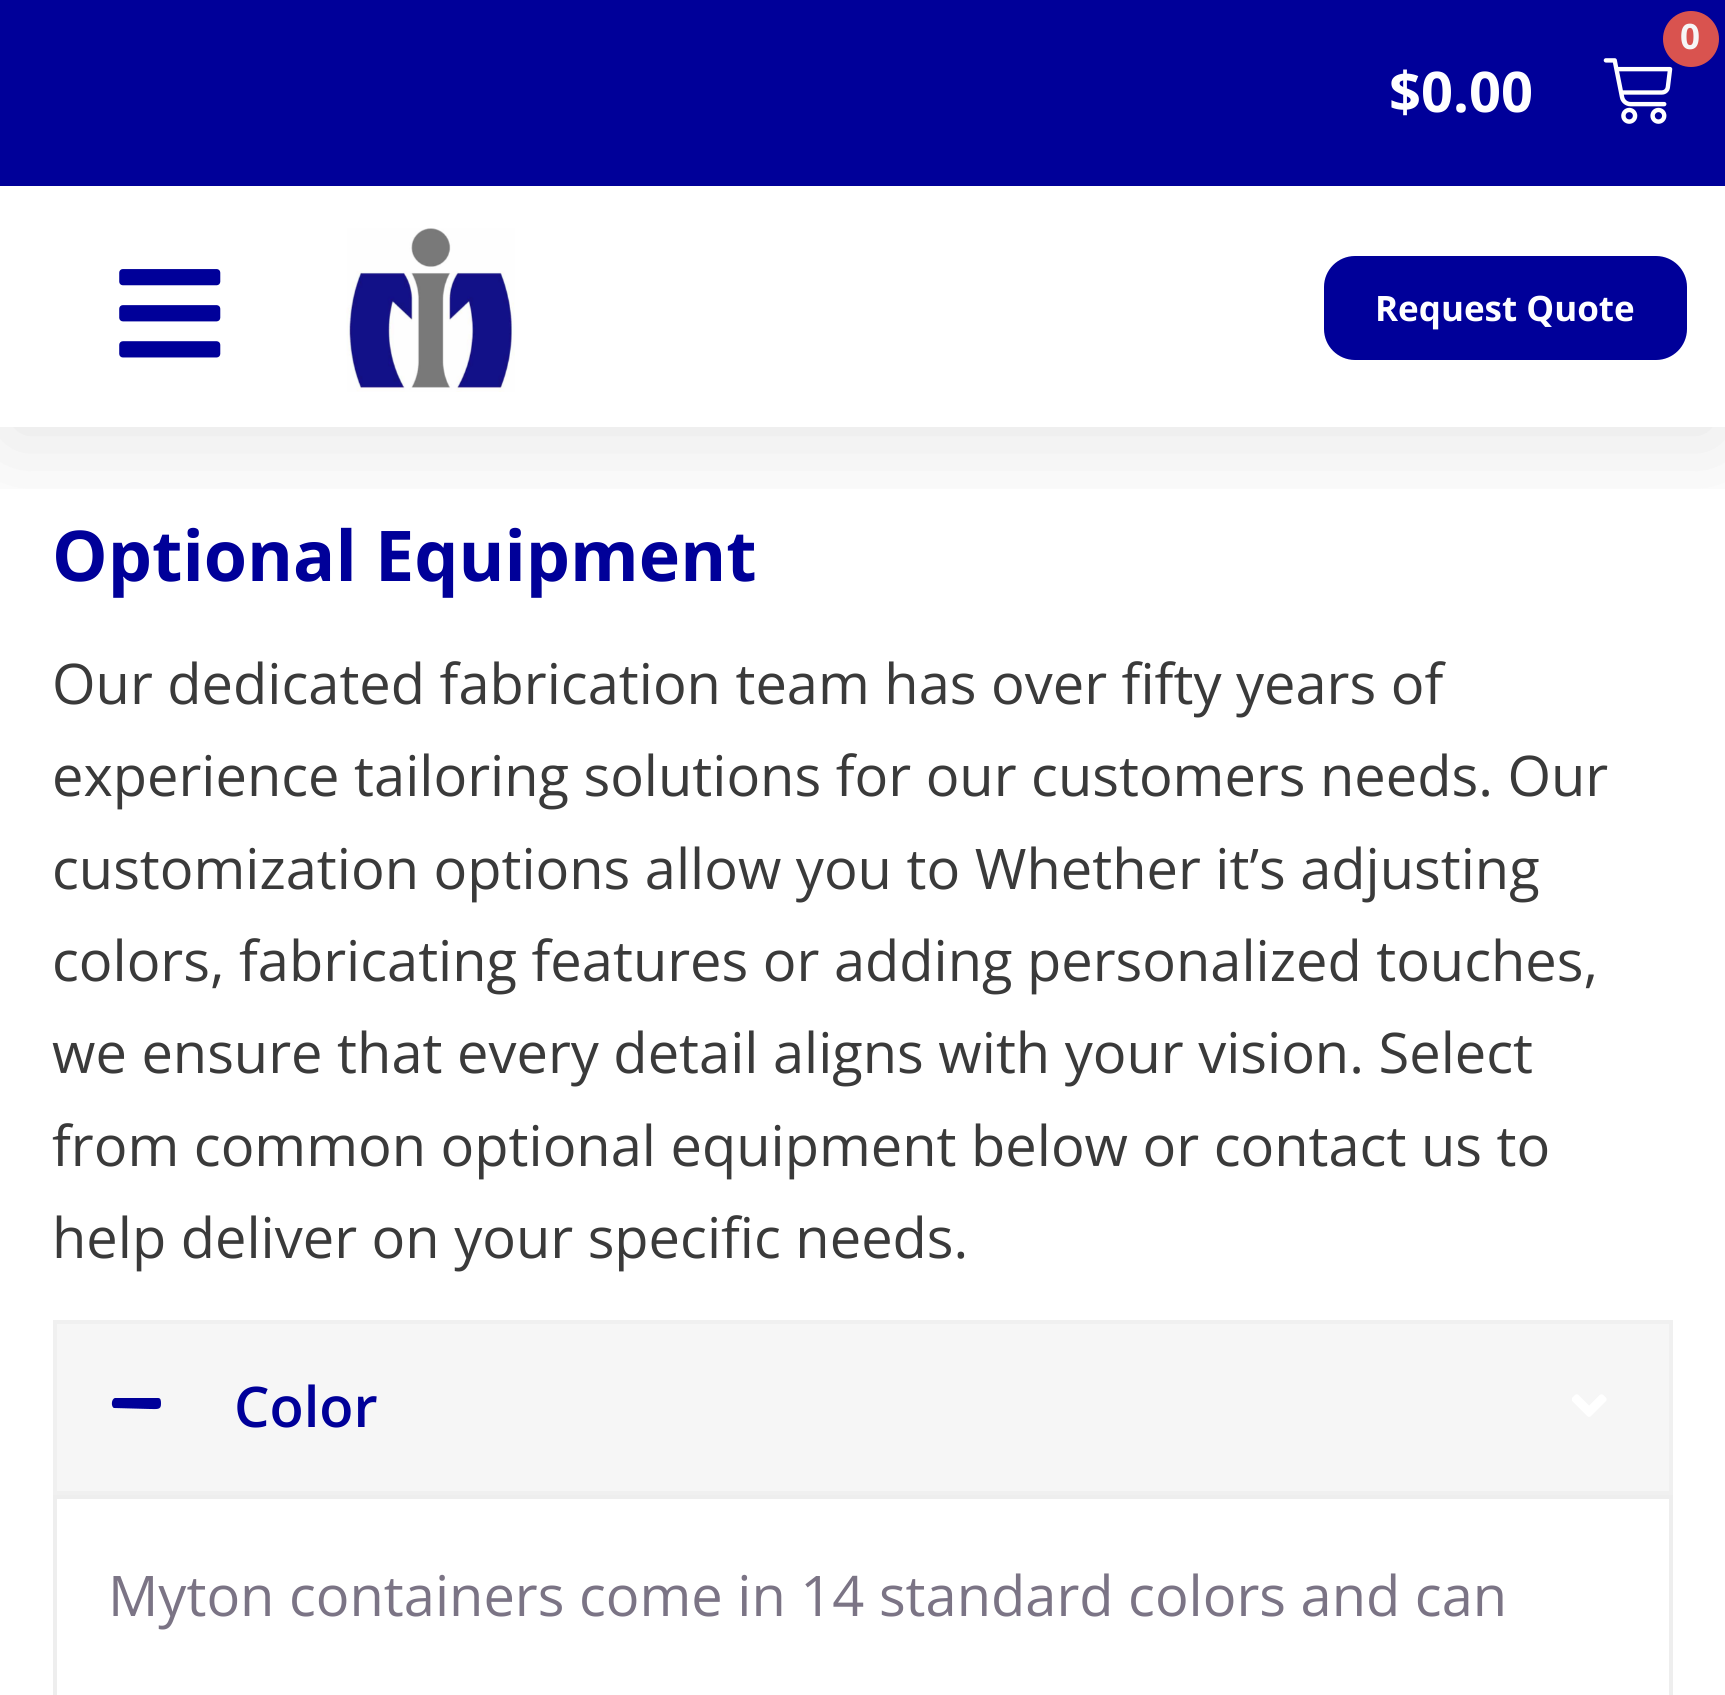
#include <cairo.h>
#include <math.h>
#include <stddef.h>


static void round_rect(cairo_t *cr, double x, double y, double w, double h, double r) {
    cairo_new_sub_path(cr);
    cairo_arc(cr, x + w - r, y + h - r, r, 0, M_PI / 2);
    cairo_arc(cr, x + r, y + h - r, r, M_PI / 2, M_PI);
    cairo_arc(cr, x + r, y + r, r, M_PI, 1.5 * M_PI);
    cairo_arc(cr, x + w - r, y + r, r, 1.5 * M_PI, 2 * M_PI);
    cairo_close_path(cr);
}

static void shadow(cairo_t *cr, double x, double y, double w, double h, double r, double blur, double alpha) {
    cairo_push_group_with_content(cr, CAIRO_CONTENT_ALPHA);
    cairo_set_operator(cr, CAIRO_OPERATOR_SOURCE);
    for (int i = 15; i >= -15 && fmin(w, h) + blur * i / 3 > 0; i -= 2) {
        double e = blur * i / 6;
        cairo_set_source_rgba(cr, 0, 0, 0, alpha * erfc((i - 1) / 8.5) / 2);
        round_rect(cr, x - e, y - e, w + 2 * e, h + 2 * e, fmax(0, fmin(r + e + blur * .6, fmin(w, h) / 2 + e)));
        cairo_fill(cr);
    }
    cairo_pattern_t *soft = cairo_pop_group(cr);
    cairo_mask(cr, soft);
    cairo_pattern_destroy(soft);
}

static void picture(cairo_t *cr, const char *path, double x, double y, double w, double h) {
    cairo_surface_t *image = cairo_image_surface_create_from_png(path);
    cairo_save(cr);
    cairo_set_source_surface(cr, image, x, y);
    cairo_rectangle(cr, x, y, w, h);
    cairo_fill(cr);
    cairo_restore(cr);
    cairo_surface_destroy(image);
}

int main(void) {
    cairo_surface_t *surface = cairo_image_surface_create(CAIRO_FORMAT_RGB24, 1725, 1695);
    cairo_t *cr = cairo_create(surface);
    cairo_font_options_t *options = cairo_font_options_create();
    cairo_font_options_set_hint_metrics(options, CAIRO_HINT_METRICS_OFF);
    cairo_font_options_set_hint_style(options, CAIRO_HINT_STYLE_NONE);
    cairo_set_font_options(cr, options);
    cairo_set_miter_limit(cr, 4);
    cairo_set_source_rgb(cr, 1, 1, 1);
    cairo_paint(cr);
    cairo_save(cr);
    cairo_rectangle(cr, 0, 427, 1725, 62);
    cairo_clip(cr);
    cairo_set_source_rgb(cr, 0, 0, 0);
    shadow(cr, 0, 18, 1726, 427, 0, 52.5, 0.1);
    cairo_restore(cr);
    cairo_set_source_rgb(cr, 0, 0, 0.6);
    cairo_rectangle(cr, 0, 0, 1725, 186);
    cairo_fill(cr);
    picture(cr, "img1.png", 1603, 58, 70, 66);
    cairo_set_source_rgb(cr, 0.851, 0.325, 0.31);
    cairo_arc(cr, 1691, 39, 28, 0, 2 * M_PI);
    cairo_fill(cr);
    cairo_select_font_face(cr, "Open Sans", CAIRO_FONT_SLANT_NORMAL, CAIRO_FONT_WEIGHT_BOLD);
    cairo_set_font_size(cr, 35);
    cairo_set_source_rgb(cr, 0.961, 0.961, 0.961);
    cairo_move_to(cr, 1680, 49);
    cairo_show_text(cr, "0");
    cairo_set_font_size(cr, 56);
    cairo_set_source_rgb(cr, 1, 1, 1);
    cairo_move_to(cr, 1389, 112);
    cairo_show_text(cr, "$0.00");
    picture(cr, "img2.png", 119, 269, 102, 89);
    picture(cr, "img3.png", 346, 228, 169, 164);
    cairo_set_source_rgb(cr, 0, 0, 0.6);
    round_rect(cr, 1322, 254, 367, 108, 33);
    cairo_fill_preserve(cr);
    cairo_set_source_rgb(cr, 1, 1, 1);
    cairo_set_line_width(cr, 4);
    cairo_stroke(cr);
    cairo_set_font_size(cr, 35);
    cairo_move_to(cr, 1375, 321);
    cairo_show_text(cr, "Request Quote");
    cairo_set_font_size(cr, 70);
    cairo_set_source_rgb(cr, 0, 0, 0.6);
    cairo_move_to(cr, 52, 581);
    cairo_show_text(cr, "Optional Equipment");
    cairo_select_font_face(cr, "Open Sans", CAIRO_FONT_SLANT_NORMAL, CAIRO_FONT_WEIGHT_NORMAL);
    cairo_set_font_size(cr, 56);
    cairo_set_source_rgb(cr, 0.227, 0.227, 0.227);
    cairo_move_to(cr, 52, 704);
    cairo_show_text(cr, "Our dedicated fabrication team has over fifty years of");
    cairo_move_to(cr, 52, 796);
    cairo_show_text(cr, "experience tailoring solutions for our customers needs. Our");
    cairo_move_to(cr, 52, 889);
    cairo_show_text(cr, "customization options allow you to Whether it’s adjusting");
    cairo_move_to(cr, 52, 981);
    cairo_show_text(cr, "colors, fabricating features or adding personalized touches,");
    cairo_move_to(cr, 52, 1073);
    cairo_show_text(cr, "we ensure that every detail aligns with your vision. Select");
    cairo_move_to(cr, 52, 1166);
    cairo_show_text(cr, "from common optional equipment below or contact us to");
    cairo_move_to(cr, 52, 1258);
    cairo_show_text(cr, "help deliver on your specific needs.");
    cairo_set_source_rgb(cr, 0.961, 0.961, 0.961);
    cairo_rectangle(cr, 55, 1322, 1616, 171);
    cairo_fill_preserve(cr);
    cairo_set_source_rgb(cr, 0.941, 0.941, 0.941);
    cairo_stroke(cr);
    cairo_set_source_rgb(cr, 0, 0, 0.6);
    cairo_new_path(cr);
    cairo_move_to(cr, 158, 1398);
    cairo_line_to(cr, 115, 1398);
    cairo_curve_to(cr, 111, 1399, 111, 1407, 114, 1408);
    cairo_line_to(cr, 150, 1409);
    cairo_curve_to(cr, 157, 1409, 161, 1410, 161, 1404);
    cairo_curve_to(cr, 161, 1401, 161, 1398, 158, 1398);
    cairo_close_path(cr);
    cairo_fill(cr);
    cairo_select_font_face(cr, "Open Sans SemiBold", CAIRO_FONT_SLANT_NORMAL, CAIRO_FONT_WEIGHT_NORMAL);
    cairo_move_to(cr, 234, 1427);
    cairo_show_text(cr, "Color");
    picture(cr, "img4.png", 1572, 1394, 35, 23);
    cairo_rectangle(cr, 55, 1497, 1616, 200);
    cairo_set_source_rgb(cr, 0.933, 0.933, 0.933);
    cairo_stroke(cr);
    cairo_select_font_face(cr, "Open Sans", CAIRO_FONT_SLANT_NORMAL, CAIRO_FONT_WEIGHT_NORMAL);
    cairo_set_source_rgb(cr, 0.482, 0.455, 0.522);
    cairo_move_to(cr, 108, 1616);
    cairo_show_text(cr, "Myton containers come in 14 standard colors and can");
    cairo_surface_write_to_png(surface, "page.png");
    cairo_font_options_destroy(options);
    cairo_destroy(cr);
    cairo_surface_destroy(surface);
    return 0;
}
